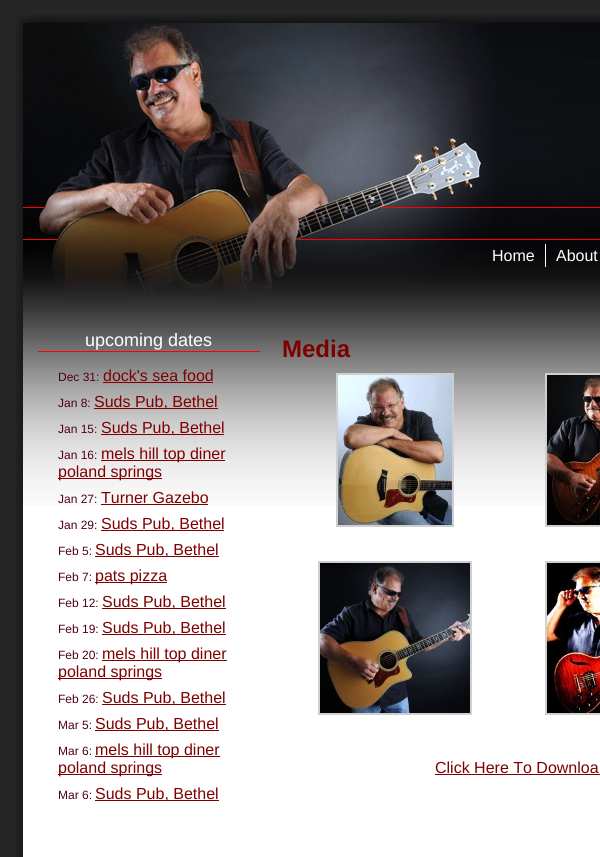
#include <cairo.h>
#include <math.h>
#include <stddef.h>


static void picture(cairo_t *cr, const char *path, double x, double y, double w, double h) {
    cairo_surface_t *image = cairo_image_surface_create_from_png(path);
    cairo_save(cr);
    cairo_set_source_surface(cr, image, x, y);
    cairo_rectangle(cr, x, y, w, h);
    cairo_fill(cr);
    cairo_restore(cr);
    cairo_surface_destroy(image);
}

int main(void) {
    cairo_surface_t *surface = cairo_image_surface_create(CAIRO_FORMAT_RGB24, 600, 857);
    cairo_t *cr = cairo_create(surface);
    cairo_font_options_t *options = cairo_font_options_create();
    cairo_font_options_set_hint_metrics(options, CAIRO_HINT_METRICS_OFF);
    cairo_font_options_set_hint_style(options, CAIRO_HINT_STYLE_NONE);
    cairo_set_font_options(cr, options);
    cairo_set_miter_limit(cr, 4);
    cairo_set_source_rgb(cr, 0.145, 0.145, 0.145);
    cairo_paint(cr);
    picture(cr, "img1.png", 18, 15, 582, 8);
    picture(cr, "img2.png", 16, 23, 7, 834);
    picture(cr, "img3.png", 23, 23, 577, 292);
    cairo_set_source_rgb(cr, 1, 1, 1);
    cairo_rectangle(cr, 545, 244, 1, 23);
    cairo_fill(cr);
    cairo_select_font_face(cr, "Liberation Sans", CAIRO_FONT_SLANT_NORMAL, CAIRO_FONT_WEIGHT_NORMAL);
    cairo_set_font_size(cr, 16);
    cairo_move_to(cr, 492, 261);
    cairo_show_text(cr, "Home");
    cairo_move_to(cr, 556, 261);
    cairo_show_text(cr, "About");
    cairo_rectangle(cr, 23, 506, 577, 351);
    cairo_fill(cr);
    picture(cr, "img4.png", 23, 315, 577, 191);
    cairo_set_source_rgb(cr, 1, 0, 0);
    cairo_rectangle(cr, 38, 351, 222, 1);
    cairo_fill(cr);
    cairo_set_font_size(cr, 18);
    cairo_set_source_rgb(cr, 1, 1, 1);
    cairo_move_to(cr, 85, 346);
    cairo_show_text(cr, "upcoming dates");
    cairo_set_font_size(cr, 12);
    cairo_set_source_rgb(cr, 0.314, 0, 0.102);
    cairo_move_to(cr, 58, 381);
    cairo_show_text(cr, "Dec 31:");
    cairo_set_font_size(cr, 16);
    cairo_set_source_rgb(cr, 0.502, 0, 0);
    cairo_move_to(cr, 103, 381);
    cairo_show_text(cr, "dock's sea food");
    cairo_rectangle(cr, 103, 382, 110, 1);
    cairo_fill(cr);
    cairo_set_font_size(cr, 12);
    cairo_set_source_rgb(cr, 0.314, 0, 0.102);
    cairo_move_to(cr, 58, 407);
    cairo_show_text(cr, "Jan 8:");
    cairo_set_source_rgb(cr, 0.502, 0, 0);
    cairo_rectangle(cr, 94, 408, 124, 1);
    cairo_fill(cr);
    cairo_set_font_size(cr, 16);
    cairo_move_to(cr, 94, 407);
    cairo_show_text(cr, "Suds Pub, Bethel");
    cairo_set_font_size(cr, 12);
    cairo_set_source_rgb(cr, 0.314, 0, 0.102);
    cairo_move_to(cr, 58, 433);
    cairo_show_text(cr, "Jan 15:");
    cairo_set_source_rgb(cr, 0.502, 0, 0);
    cairo_rectangle(cr, 101, 434, 123, 1);
    cairo_fill(cr);
    cairo_set_font_size(cr, 16);
    cairo_move_to(cr, 101, 433);
    cairo_show_text(cr, "Suds Pub, Bethel");
    cairo_set_font_size(cr, 12);
    cairo_set_source_rgb(cr, 0.314, 0, 0.102);
    cairo_move_to(cr, 58, 459);
    cairo_show_text(cr, "Jan 16:");
    cairo_set_source_rgb(cr, 0.502, 0, 0);
    cairo_rectangle(cr, 101, 460, 124, 1);
    cairo_fill(cr);
    cairo_set_font_size(cr, 16);
    cairo_move_to(cr, 101, 459);
    cairo_show_text(cr, "mels hill top diner");
    cairo_rectangle(cr, 58, 478, 104, 1);
    cairo_fill(cr);
    cairo_move_to(cr, 58, 477);
    cairo_show_text(cr, "poland springs");
    cairo_set_font_size(cr, 12);
    cairo_set_source_rgb(cr, 0.314, 0, 0.102);
    cairo_move_to(cr, 58, 503);
    cairo_show_text(cr, "Jan 27:");
    cairo_set_font_size(cr, 16);
    cairo_set_source_rgb(cr, 0.502, 0, 0);
    cairo_move_to(cr, 101, 503);
    cairo_show_text(cr, "Turner Gazebo");
    cairo_rectangle(cr, 101, 504, 107, 1);
    cairo_fill(cr);
    cairo_set_font_size(cr, 12);
    cairo_set_source_rgb(cr, 0.314, 0, 0.102);
    cairo_move_to(cr, 58, 529);
    cairo_show_text(cr, "Jan 29:");
    cairo_set_source_rgb(cr, 0.502, 0, 0);
    cairo_rectangle(cr, 101, 530, 123, 1);
    cairo_fill(cr);
    cairo_set_font_size(cr, 16);
    cairo_move_to(cr, 101, 529);
    cairo_show_text(cr, "Suds Pub, Bethel");
    cairo_set_font_size(cr, 12);
    cairo_set_source_rgb(cr, 0.314, 0, 0.102);
    cairo_move_to(cr, 58, 555);
    cairo_show_text(cr, "Feb 5:");
    cairo_set_source_rgb(cr, 0.502, 0, 0);
    cairo_rectangle(cr, 95, 556, 124, 1);
    cairo_fill(cr);
    cairo_set_font_size(cr, 16);
    cairo_move_to(cr, 95, 555);
    cairo_show_text(cr, "Suds Pub, Bethel");
    cairo_set_font_size(cr, 12);
    cairo_set_source_rgb(cr, 0.314, 0, 0.102);
    cairo_move_to(cr, 58, 581);
    cairo_show_text(cr, "Feb 7:");
    cairo_set_source_rgb(cr, 0.502, 0, 0);
    cairo_rectangle(cr, 95, 582, 72, 1);
    cairo_fill(cr);
    cairo_set_font_size(cr, 16);
    cairo_move_to(cr, 95, 581);
    cairo_show_text(cr, "pats pizza");
    cairo_set_font_size(cr, 12);
    cairo_set_source_rgb(cr, 0.314, 0, 0.102);
    cairo_move_to(cr, 58, 607);
    cairo_show_text(cr, "Feb 12:");
    cairo_set_source_rgb(cr, 0.502, 0, 0);
    cairo_rectangle(cr, 102, 608, 124, 1);
    cairo_fill(cr);
    cairo_set_font_size(cr, 16);
    cairo_move_to(cr, 102, 607);
    cairo_show_text(cr, "Suds Pub, Bethel");
    cairo_set_font_size(cr, 12);
    cairo_set_source_rgb(cr, 0.314, 0, 0.102);
    cairo_move_to(cr, 58, 633);
    cairo_show_text(cr, "Feb 19:");
    cairo_set_source_rgb(cr, 0.502, 0, 0);
    cairo_rectangle(cr, 102, 634, 124, 1);
    cairo_fill(cr);
    cairo_set_font_size(cr, 16);
    cairo_move_to(cr, 102, 633);
    cairo_show_text(cr, "Suds Pub, Bethel");
    cairo_set_font_size(cr, 12);
    cairo_set_source_rgb(cr, 0.314, 0, 0.102);
    cairo_move_to(cr, 58, 659);
    cairo_show_text(cr, "Feb 20:");
    cairo_set_source_rgb(cr, 0.502, 0, 0);
    cairo_rectangle(cr, 102, 660, 125, 1);
    cairo_fill(cr);
    cairo_set_font_size(cr, 16);
    cairo_move_to(cr, 102, 659);
    cairo_show_text(cr, "mels hill top diner");
    cairo_rectangle(cr, 58, 678, 104, 1);
    cairo_fill(cr);
    cairo_move_to(cr, 58, 677);
    cairo_show_text(cr, "poland springs");
    cairo_set_font_size(cr, 12);
    cairo_set_source_rgb(cr, 0.314, 0, 0.102);
    cairo_move_to(cr, 58, 703);
    cairo_show_text(cr, "Feb 26:");
    cairo_set_source_rgb(cr, 0.502, 0, 0);
    cairo_rectangle(cr, 102, 704, 124, 1);
    cairo_fill(cr);
    cairo_set_font_size(cr, 16);
    cairo_move_to(cr, 102, 703);
    cairo_show_text(cr, "Suds Pub, Bethel");
    cairo_set_font_size(cr, 12);
    cairo_set_source_rgb(cr, 0.314, 0, 0.102);
    cairo_move_to(cr, 58, 729);
    cairo_show_text(cr, "Mar 5:");
    cairo_set_source_rgb(cr, 0.502, 0, 0);
    cairo_rectangle(cr, 95, 730, 124, 1);
    cairo_fill(cr);
    cairo_set_font_size(cr, 16);
    cairo_move_to(cr, 95, 729);
    cairo_show_text(cr, "Suds Pub, Bethel");
    cairo_set_font_size(cr, 12);
    cairo_set_source_rgb(cr, 0.314, 0, 0.102);
    cairo_move_to(cr, 58, 755);
    cairo_show_text(cr, "Mar 6:");
    cairo_set_source_rgb(cr, 0.502, 0, 0);
    cairo_rectangle(cr, 95, 756, 125, 1);
    cairo_fill(cr);
    cairo_set_font_size(cr, 16);
    cairo_move_to(cr, 95, 755);
    cairo_show_text(cr, "mels hill top diner");
    cairo_rectangle(cr, 58, 774, 104, 1);
    cairo_fill(cr);
    cairo_move_to(cr, 58, 773);
    cairo_show_text(cr, "poland springs");
    cairo_set_font_size(cr, 12);
    cairo_set_source_rgb(cr, 0.314, 0, 0.102);
    cairo_move_to(cr, 58, 799);
    cairo_show_text(cr, "Mar 6:");
    cairo_set_source_rgb(cr, 0.502, 0, 0);
    cairo_rectangle(cr, 95, 800, 124, 1);
    cairo_fill(cr);
    cairo_set_font_size(cr, 16);
    cairo_move_to(cr, 95, 799);
    cairo_show_text(cr, "Suds Pub, Bethel");
    cairo_select_font_face(cr, "Liberation Sans", CAIRO_FONT_SLANT_NORMAL, CAIRO_FONT_WEIGHT_BOLD);
    cairo_set_font_size(cr, 24);
    cairo_move_to(cr, 282, 357);
    cairo_show_text(cr, "Media");
    cairo_rectangle(cr, 337, 374, 116, 152);
    cairo_set_source_rgb(cr, 0.812, 0.812, 0.812);
    cairo_stroke(cr);
    picture(cr, "img5.png", 338, 375, 114, 150);
    cairo_rectangle(cr, 546, 374, 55, 152);
    cairo_stroke(cr);
    picture(cr, "img6.png", 547, 375, 53, 150);
    cairo_rectangle(cr, 319, 562, 152, 152);
    cairo_stroke(cr);
    picture(cr, "img7.png", 320, 563, 150, 150);
    cairo_rectangle(cr, 546, 562, 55, 152);
    cairo_stroke(cr);
    picture(cr, "img8.png", 547, 563, 53, 150);
    cairo_select_font_face(cr, "Liberation Sans", CAIRO_FONT_SLANT_NORMAL, CAIRO_FONT_WEIGHT_NORMAL);
    cairo_set_font_size(cr, 16);
    cairo_set_source_rgb(cr, 0.502, 0, 0);
    cairo_move_to(cr, 435, 773);
    cairo_show_text(cr, "Click Here To Downloa");
    cairo_rectangle(cr, 435, 774, 165, 1);
    cairo_fill(cr);
    cairo_surface_write_to_png(surface, "page.png");
    cairo_font_options_destroy(options);
    cairo_destroy(cr);
    cairo_surface_destroy(surface);
    return 0;
}
